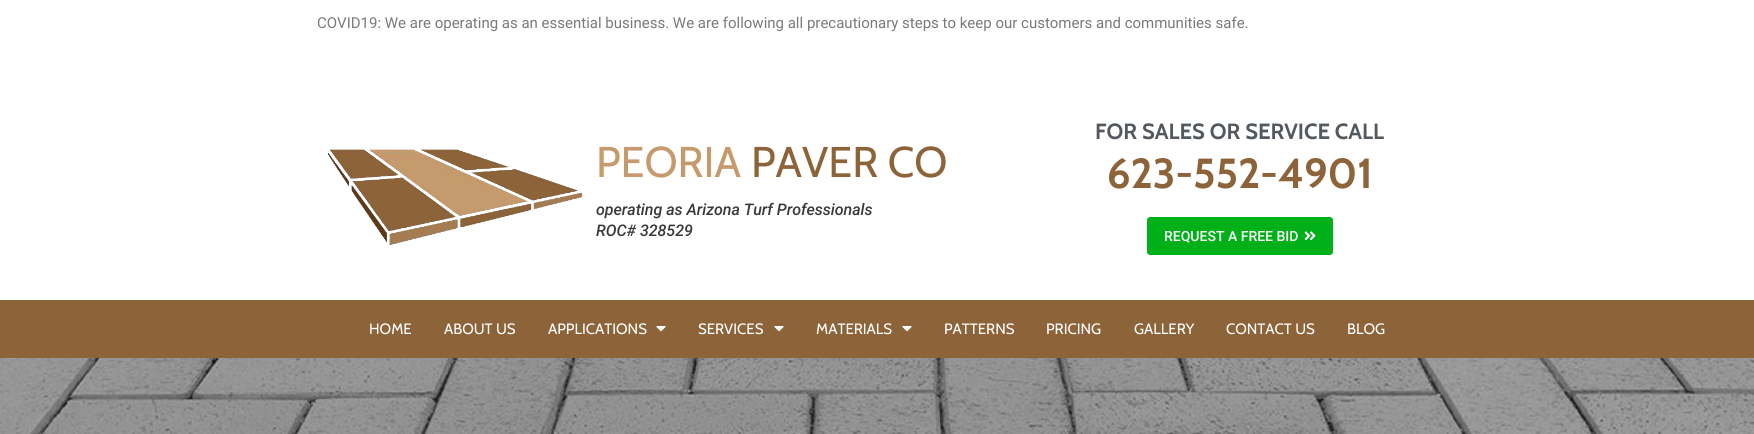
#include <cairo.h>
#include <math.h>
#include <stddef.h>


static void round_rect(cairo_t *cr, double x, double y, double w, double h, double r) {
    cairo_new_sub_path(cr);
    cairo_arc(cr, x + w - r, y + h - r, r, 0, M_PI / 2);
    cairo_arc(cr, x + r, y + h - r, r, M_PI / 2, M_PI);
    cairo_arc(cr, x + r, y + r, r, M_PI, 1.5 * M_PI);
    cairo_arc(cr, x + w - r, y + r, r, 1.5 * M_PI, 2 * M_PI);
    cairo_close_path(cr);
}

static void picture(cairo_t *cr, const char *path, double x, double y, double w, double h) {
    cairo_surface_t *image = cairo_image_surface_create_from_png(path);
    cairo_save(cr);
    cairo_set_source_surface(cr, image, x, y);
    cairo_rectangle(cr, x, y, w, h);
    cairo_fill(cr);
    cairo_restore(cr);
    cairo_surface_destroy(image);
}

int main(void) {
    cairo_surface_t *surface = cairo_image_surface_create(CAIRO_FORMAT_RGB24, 1754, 434);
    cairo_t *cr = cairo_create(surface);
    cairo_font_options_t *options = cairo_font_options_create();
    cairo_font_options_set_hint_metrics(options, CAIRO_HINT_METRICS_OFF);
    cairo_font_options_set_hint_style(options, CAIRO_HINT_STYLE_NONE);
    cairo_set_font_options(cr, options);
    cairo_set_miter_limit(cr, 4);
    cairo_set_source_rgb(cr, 1, 1, 1);
    cairo_paint(cr);
    cairo_select_font_face(cr, "Roboto", CAIRO_FONT_SLANT_NORMAL, CAIRO_FONT_WEIGHT_NORMAL);
    cairo_set_font_size(cr, 15);
    cairo_set_source_rgb(cr, 0.478, 0.478, 0.478);
    cairo_move_to(cr, 317, 28);
    cairo_show_text(cr, "COVID19: We are operating as an essential business. We are following all precautionary steps to keep our customers and communities safe.");
    picture(cr, "img1.png", 328, 149, 255, 96);
    cairo_select_font_face(cr, "Cabin", CAIRO_FONT_SLANT_NORMAL, CAIRO_FONT_WEIGHT_NORMAL);
    cairo_set_font_size(cr, 43);
    cairo_set_source_rgb(cr, 0.773, 0.604, 0.427);
    cairo_move_to(cr, 596, 177);
    cairo_show_text(cr, "PEORIA");
    cairo_set_source_rgb(cr, 0.553, 0.388, 0.224);
    cairo_move_to(cr, 751, 177);
    cairo_show_text(cr, "PAVER CO");
    cairo_select_font_face(cr, "Roboto Medium", CAIRO_FONT_SLANT_ITALIC, CAIRO_FONT_WEIGHT_NORMAL);
    cairo_set_font_size(cr, 16);
    cairo_set_source_rgb(cr, 0.227, 0.227, 0.227);
    cairo_move_to(cr, 596, 215);
    cairo_show_text(cr, "operating as Arizona Turf Professionals");
    cairo_move_to(cr, 596, 236);
    cairo_show_text(cr, "ROC# 328529");
    cairo_select_font_face(cr, "Cabin", CAIRO_FONT_SLANT_NORMAL, CAIRO_FONT_WEIGHT_BOLD);
    cairo_set_font_size(cr, 22);
    cairo_set_source_rgb(cr, 0.329, 0.349, 0.373);
    cairo_move_to(cr, 1095, 139);
    cairo_show_text(cr, "FOR SALES OR SERVICE CALL");
    cairo_set_font_size(cr, 42);
    cairo_set_source_rgb(cr, 0.553, 0.388, 0.224);
    cairo_move_to(cr, 1107, 188);
    cairo_show_text(cr, "623-552-4901");
    cairo_set_source_rgb(cr, 0, 0.69, 0.094);
    round_rect(cr, 1147, 217, 186, 38, 3);
    cairo_fill(cr);
    cairo_select_font_face(cr, "Roboto Medium", CAIRO_FONT_SLANT_NORMAL, CAIRO_FONT_WEIGHT_NORMAL);
    cairo_set_font_size(cr, 14);
    cairo_set_source_rgb(cr, 1, 1, 1);
    cairo_move_to(cr, 1164, 241);
    cairo_show_text(cr, "REQUEST A FREE BID");
    picture(cr, "img2.png", 1304, 231, 12, 10);
    cairo_set_source_rgb(cr, 0.553, 0.388, 0.224);
    cairo_rectangle(cr, 0, 300, 1754, 58);
    cairo_fill(cr);
    cairo_select_font_face(cr, "Cabin", CAIRO_FONT_SLANT_NORMAL, CAIRO_FONT_WEIGHT_NORMAL);
    cairo_set_font_size(cr, 15);
    cairo_set_source_rgb(cr, 1, 1, 1);
    cairo_move_to(cr, 369, 334);
    cairo_show_text(cr, "HOME");
    cairo_move_to(cr, 444, 334);
    cairo_show_text(cr, "ABOUT US");
    cairo_move_to(cr, 548, 334);
    cairo_show_text(cr, "APPLICATIONS");
    picture(cr, "img3.png", 656, 326, 10, 6);
    cairo_move_to(cr, 698, 334);
    cairo_show_text(cr, "SERVICES");
    picture(cr, "img3.png", 774, 326, 10, 6);
    cairo_move_to(cr, 816, 334);
    cairo_show_text(cr, "MATERIALS");
    picture(cr, "img3.png", 902, 326, 10, 6);
    cairo_move_to(cr, 944, 334);
    cairo_show_text(cr, "PATTERNS");
    cairo_move_to(cr, 1046, 334);
    cairo_show_text(cr, "PRICING");
    cairo_move_to(cr, 1134, 334);
    cairo_show_text(cr, "GALLERY");
    cairo_move_to(cr, 1226, 334);
    cairo_show_text(cr, "CONTACT US");
    cairo_move_to(cr, 1347, 334);
    cairo_show_text(cr, "BLOG");
    picture(cr, "img4.png", 0, 358, 1754, 76);
    cairo_surface_write_to_png(surface, "page.png");
    cairo_font_options_destroy(options);
    cairo_destroy(cr);
    cairo_surface_destroy(surface);
    return 0;
}
